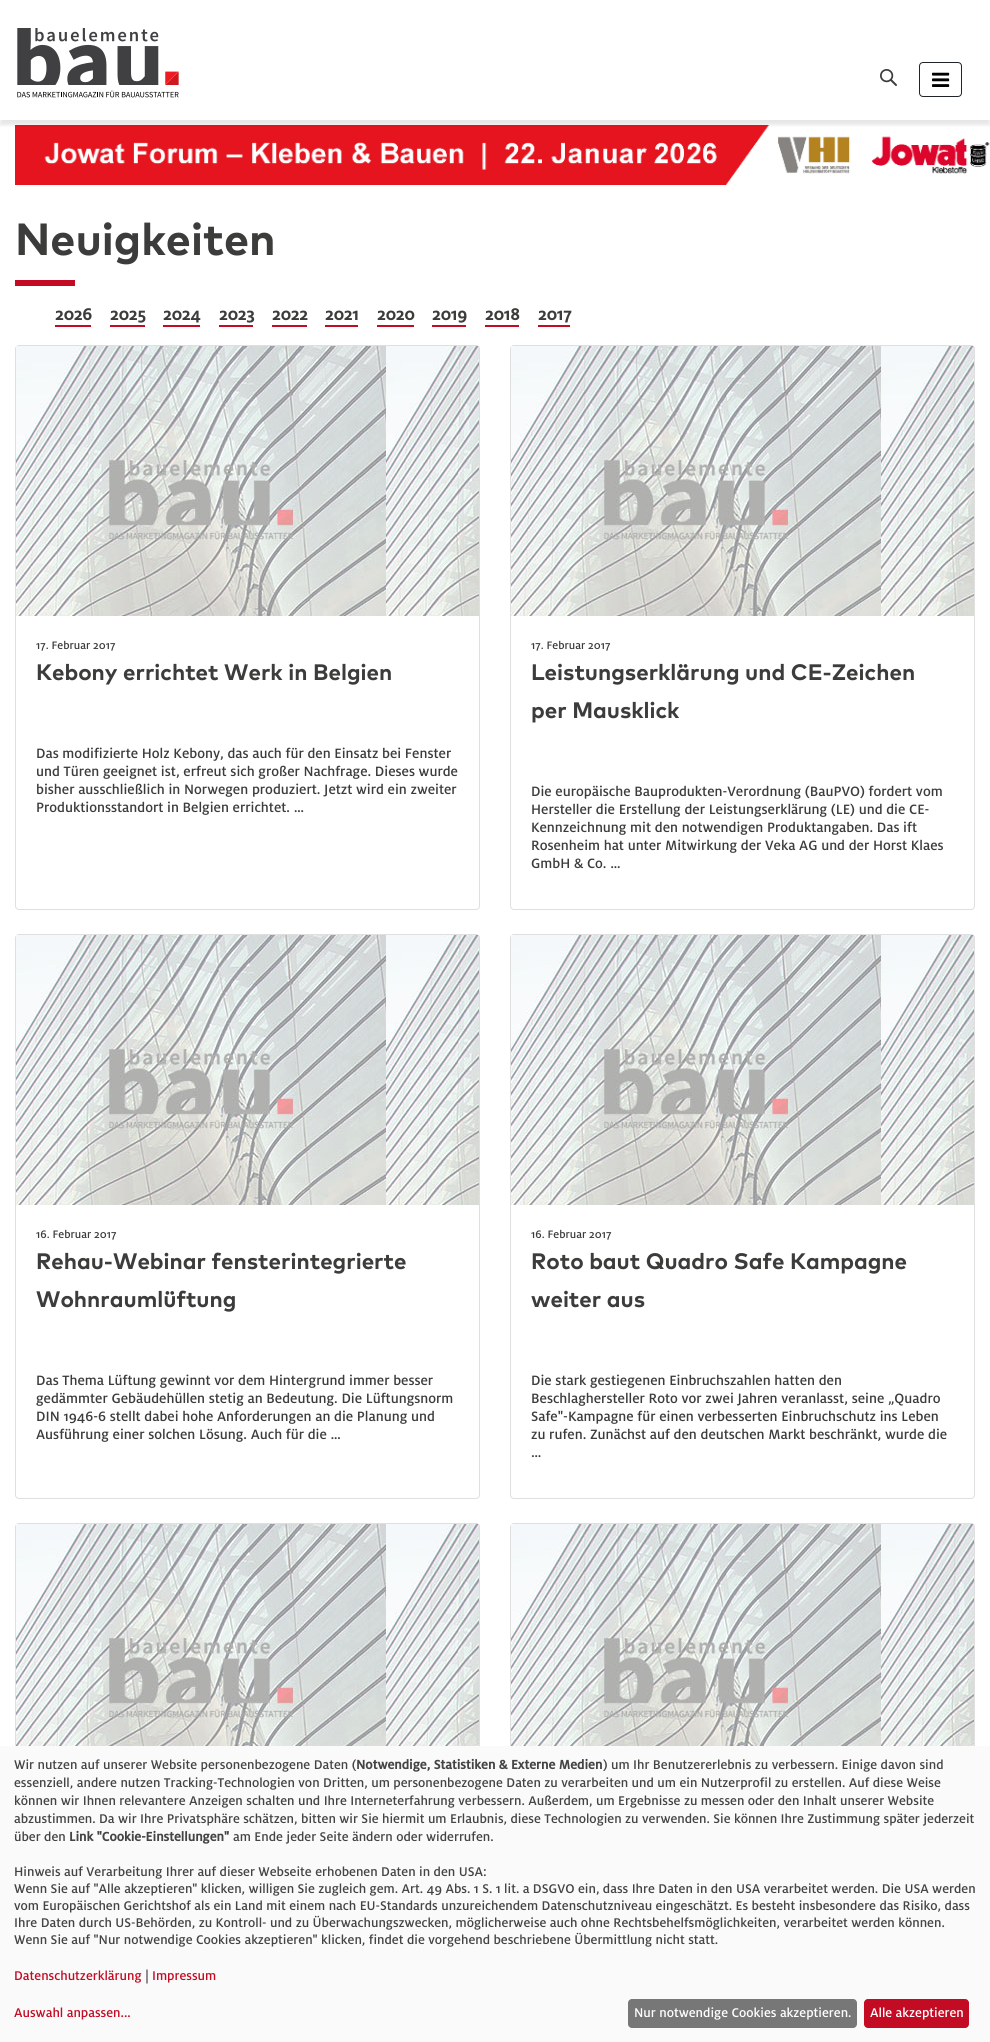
#include <cairo.h>
#include <math.h>
#include <stddef.h>


static void round_rect(cairo_t *cr, double x, double y, double w, double h, double r) {
    cairo_new_sub_path(cr);
    cairo_arc(cr, x + w - r, y + h - r, r, 0, M_PI / 2);
    cairo_arc(cr, x + r, y + h - r, r, M_PI / 2, M_PI);
    cairo_arc(cr, x + r, y + r, r, M_PI, 1.5 * M_PI);
    cairo_arc(cr, x + w - r, y + r, r, 1.5 * M_PI, 2 * M_PI);
    cairo_close_path(cr);
}

static void shadow(cairo_t *cr, double x, double y, double w, double h, double r, double blur, double alpha) {
    cairo_push_group_with_content(cr, CAIRO_CONTENT_ALPHA);
    cairo_set_operator(cr, CAIRO_OPERATOR_SOURCE);
    for (int i = 15; i >= -15 && fmin(w, h) + blur * i / 3 > 0; i -= 2) {
        double e = blur * i / 6;
        cairo_set_source_rgba(cr, 0, 0, 0, alpha * erfc((i - 1) / 8.5) / 2);
        round_rect(cr, x - e, y - e, w + 2 * e, h + 2 * e, fmax(0, fmin(r + e + blur * .6, fmin(w, h) / 2 + e)));
        cairo_fill(cr);
    }
    cairo_pattern_t *soft = cairo_pop_group(cr);
    cairo_mask(cr, soft);
    cairo_pattern_destroy(soft);
}

static void picture(cairo_t *cr, const char *path, double x, double y, double w, double h) {
    cairo_surface_t *image = cairo_image_surface_create_from_png(path);
    cairo_save(cr);
    cairo_set_source_surface(cr, image, x, y);
    cairo_rectangle(cr, x, y, w, h);
    cairo_fill(cr);
    cairo_restore(cr);
    cairo_surface_destroy(image);
}

int main(void) {
    cairo_surface_t *surface = cairo_image_surface_create(CAIRO_FORMAT_RGB24, 990, 2042);
    cairo_t *cr = cairo_create(surface);
    cairo_font_options_t *options = cairo_font_options_create();
    cairo_font_options_set_hint_metrics(options, CAIRO_HINT_METRICS_OFF);
    cairo_font_options_set_hint_style(options, CAIRO_HINT_STYLE_NONE);
    cairo_set_font_options(cr, options);
    cairo_set_miter_limit(cr, 4);
    cairo_set_source_rgb(cr, 1, 1, 1);
    cairo_paint(cr);
    picture(cr, "img5.png", 15, 125, 975, 60);
    cairo_save(cr);
    cairo_rectangle(cr, 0, 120, 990, 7);
    cairo_clip(cr);
    cairo_set_source_rgb(cr, 0, 0, 0);
    shadow(cr, 0, 5, 990, 120, 0, 2, 0.1);
    cairo_restore(cr);
    picture(cr, "img1.png", 17, 28, 162, 57);
    picture(cr, "img2.png", 17, 90, 162, 8);
    picture(cr, "img3.png", 880, 69, 17, 17);
    round_rect(cr, 919.5, 62.5, 42, 34, 3.5);
    cairo_set_source_rgb(cr, 0.129, 0.145, 0.161);
    cairo_set_line_width(cr, 1);
    cairo_stroke(cr);
    picture(cr, "img4.png", 932, 72, 18, 15);
    cairo_set_source_rgb(cr, 0.765, 0.043, 0.141);
    cairo_rectangle(cr, 15, 280, 60, 6);
    cairo_fill(cr);
    cairo_select_font_face(cr, "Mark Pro", CAIRO_FONT_SLANT_NORMAL, CAIRO_FONT_WEIGHT_BOLD);
    cairo_set_font_size(cr, 45);
    cairo_set_source_rgb(cr, 0.235, 0.235, 0.231);
    cairo_move_to(cr, 15, 255);
    cairo_show_text(cr, "Neuigkeiten");
    cairo_set_source_rgb(cr, 0.765, 0.043, 0.141);
    cairo_rectangle(cr, 55, 325, 36, 2);
    cairo_fill(cr);
    cairo_select_font_face(cr, "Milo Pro", CAIRO_FONT_SLANT_NORMAL, CAIRO_FONT_WEIGHT_BOLD);
    cairo_set_font_size(cr, 18);
    cairo_set_source_rgb(cr, 0.235, 0.235, 0.231);
    cairo_move_to(cr, 55, 320);
    cairo_show_text(cr, "2026");
    cairo_set_source_rgb(cr, 0.765, 0.043, 0.141);
    cairo_rectangle(cr, 110, 325, 35, 2);
    cairo_fill(cr);
    cairo_set_source_rgb(cr, 0.235, 0.235, 0.231);
    cairo_move_to(cr, 110, 320);
    cairo_show_text(cr, "2025");
    cairo_set_source_rgb(cr, 0.765, 0.043, 0.141);
    cairo_rectangle(cr, 163, 325, 37, 2);
    cairo_fill(cr);
    cairo_set_source_rgb(cr, 0.235, 0.235, 0.231);
    cairo_move_to(cr, 163, 320);
    cairo_show_text(cr, "2024");
    cairo_set_source_rgb(cr, 0.765, 0.043, 0.141);
    cairo_rectangle(cr, 219, 325, 34, 2);
    cairo_fill(cr);
    cairo_set_source_rgb(cr, 0.235, 0.235, 0.231);
    cairo_move_to(cr, 219, 320);
    cairo_show_text(cr, "2023");
    cairo_set_source_rgb(cr, 0.765, 0.043, 0.141);
    cairo_rectangle(cr, 272, 325, 35, 2);
    cairo_fill(cr);
    cairo_set_source_rgb(cr, 0.235, 0.235, 0.231);
    cairo_move_to(cr, 272, 320);
    cairo_show_text(cr, "2022");
    cairo_set_source_rgb(cr, 0.765, 0.043, 0.141);
    cairo_rectangle(cr, 325, 325, 33, 2);
    cairo_fill(cr);
    cairo_set_source_rgb(cr, 0.235, 0.235, 0.231);
    cairo_move_to(cr, 325, 320);
    cairo_show_text(cr, "2021");
    cairo_set_source_rgb(cr, 0.765, 0.043, 0.141);
    cairo_rectangle(cr, 377, 325, 37, 2);
    cairo_fill(cr);
    cairo_set_source_rgb(cr, 0.235, 0.235, 0.231);
    cairo_move_to(cr, 377, 320);
    cairo_show_text(cr, "2020");
    cairo_set_source_rgb(cr, 0.765, 0.043, 0.141);
    cairo_rectangle(cr, 432, 325, 34, 2);
    cairo_fill(cr);
    cairo_set_source_rgb(cr, 0.235, 0.235, 0.231);
    cairo_move_to(cr, 432, 320);
    cairo_show_text(cr, "2019");
    cairo_set_source_rgb(cr, 0.765, 0.043, 0.141);
    cairo_rectangle(cr, 485, 325, 34, 2);
    cairo_fill(cr);
    cairo_set_source_rgb(cr, 0.235, 0.235, 0.231);
    cairo_move_to(cr, 485, 320);
    cairo_show_text(cr, "2018");
    cairo_set_source_rgb(cr, 0.765, 0.043, 0.141);
    cairo_rectangle(cr, 538, 325, 32, 2);
    cairo_fill(cr);
    cairo_set_source_rgb(cr, 0.235, 0.235, 0.231);
    cairo_move_to(cr, 538, 320);
    cairo_show_text(cr, "2017");
    round_rect(cr, 15.5, 345.5, 464, 564, 3.5);
    cairo_set_source_rgb(cr, 0.875, 0.875, 0.875);
    cairo_stroke(cr);
    picture(cr, "img6.png", 16, 346, 463, 270);
    cairo_select_font_face(cr, "Milo Pro Medium", CAIRO_FONT_SLANT_NORMAL, CAIRO_FONT_WEIGHT_NORMAL);
    cairo_set_font_size(cr, 12);
    cairo_set_source_rgb(cr, 0.235, 0.235, 0.231);
    cairo_move_to(cr, 36, 649);
    cairo_show_text(cr, "17. Februar 2017");
    cairo_select_font_face(cr, "Mark Pro", CAIRO_FONT_SLANT_NORMAL, CAIRO_FONT_WEIGHT_BOLD);
    cairo_set_font_size(cr, 22.4);
    cairo_move_to(cr, 36, 680);
    cairo_show_text(cr, "Kebony errichtet Werk in Belgien");
    cairo_select_font_face(cr, "Milo Pro Medium", CAIRO_FONT_SLANT_NORMAL, CAIRO_FONT_WEIGHT_NORMAL);
    cairo_set_font_size(cr, 15);
    cairo_move_to(cr, 36, 758);
    cairo_show_text(cr, "Das modifizierte Holz Kebony, das auch für den Einsatz bei Fenster");
    cairo_move_to(cr, 36, 776);
    cairo_show_text(cr, "und Türen geeignet ist, erfreut sich großer Nachfrage. Dieses wurde");
    cairo_move_to(cr, 36, 794);
    cairo_show_text(cr, "bisher ausschließlich in Norwegen produziert. Jetzt wird ein zweiter");
    cairo_move_to(cr, 36, 812);
    cairo_show_text(cr, "Produktionsstandort in Belgien errichtet. …");
    round_rect(cr, 510.5, 345.5, 464, 564, 3.5);
    cairo_set_source_rgb(cr, 0.875, 0.875, 0.875);
    cairo_stroke(cr);
    picture(cr, "img6.png", 511, 346, 463, 270);
    cairo_set_font_size(cr, 12);
    cairo_set_source_rgb(cr, 0.235, 0.235, 0.231);
    cairo_move_to(cr, 531, 649);
    cairo_show_text(cr, "17. Februar 2017");
    cairo_select_font_face(cr, "Mark Pro", CAIRO_FONT_SLANT_NORMAL, CAIRO_FONT_WEIGHT_BOLD);
    cairo_set_font_size(cr, 22.4);
    cairo_move_to(cr, 531, 680);
    cairo_show_text(cr, "Leistungserklärung und CE-Zeichen");
    cairo_move_to(cr, 531, 718);
    cairo_show_text(cr, "per Mausklick");
    cairo_select_font_face(cr, "Milo Pro Medium", CAIRO_FONT_SLANT_NORMAL, CAIRO_FONT_WEIGHT_NORMAL);
    cairo_set_font_size(cr, 15);
    cairo_move_to(cr, 531, 796);
    cairo_show_text(cr, "Die europäische Bauprodukten-Verordnung (BauPVO) fordert vom");
    cairo_move_to(cr, 531, 814);
    cairo_show_text(cr, "Hersteller die Erstellung der Leistungserklärung (LE) und die CE-");
    cairo_move_to(cr, 531, 832);
    cairo_show_text(cr, "Kennzeichnung mit den notwendigen Produktangaben. Das ift");
    cairo_move_to(cr, 531, 850);
    cairo_show_text(cr, "Rosenheim hat unter Mitwirkung der Veka AG und der Horst Klaes");
    cairo_move_to(cr, 531, 868);
    cairo_show_text(cr, "GmbH & Co. …");
    round_rect(cr, 15.5, 934.5, 464, 564, 3.5);
    cairo_set_source_rgb(cr, 0.875, 0.875, 0.875);
    cairo_stroke(cr);
    picture(cr, "img6.png", 16, 935, 463, 270);
    cairo_set_font_size(cr, 12);
    cairo_set_source_rgb(cr, 0.235, 0.235, 0.231);
    cairo_move_to(cr, 36, 1238);
    cairo_show_text(cr, "16. Februar 2017");
    cairo_select_font_face(cr, "Mark Pro", CAIRO_FONT_SLANT_NORMAL, CAIRO_FONT_WEIGHT_BOLD);
    cairo_set_font_size(cr, 22.4);
    cairo_move_to(cr, 36, 1269);
    cairo_show_text(cr, "Rehau-Webinar fensterintegrierte");
    cairo_move_to(cr, 36, 1307);
    cairo_show_text(cr, "Wohnraumlüftung");
    cairo_select_font_face(cr, "Milo Pro Medium", CAIRO_FONT_SLANT_NORMAL, CAIRO_FONT_WEIGHT_NORMAL);
    cairo_set_font_size(cr, 15);
    cairo_move_to(cr, 36, 1385);
    cairo_show_text(cr, "Das Thema Lüftung gewinnt vor dem Hintergrund immer besser");
    cairo_move_to(cr, 36, 1403);
    cairo_show_text(cr, "gedämmter Gebäudehüllen stetig an Bedeutung. Die Lüftungsnorm");
    cairo_move_to(cr, 36, 1421);
    cairo_show_text(cr, "DIN 1946-6 stellt dabei hohe Anforderungen an die Planung und");
    cairo_move_to(cr, 36, 1439);
    cairo_show_text(cr, "Ausführung einer solchen Lösung. Auch für die …");
    round_rect(cr, 510.5, 934.5, 464, 564, 3.5);
    cairo_set_source_rgb(cr, 0.875, 0.875, 0.875);
    cairo_stroke(cr);
    picture(cr, "img6.png", 511, 935, 463, 270);
    cairo_set_font_size(cr, 12);
    cairo_set_source_rgb(cr, 0.235, 0.235, 0.231);
    cairo_move_to(cr, 531, 1238);
    cairo_show_text(cr, "16. Februar 2017");
    cairo_select_font_face(cr, "Mark Pro", CAIRO_FONT_SLANT_NORMAL, CAIRO_FONT_WEIGHT_BOLD);
    cairo_set_font_size(cr, 22.4);
    cairo_move_to(cr, 531, 1269);
    cairo_show_text(cr, "Roto baut Quadro Safe Kampagne");
    cairo_move_to(cr, 531, 1307);
    cairo_show_text(cr, "weiter aus");
    cairo_select_font_face(cr, "Milo Pro Medium", CAIRO_FONT_SLANT_NORMAL, CAIRO_FONT_WEIGHT_NORMAL);
    cairo_set_font_size(cr, 15);
    cairo_move_to(cr, 531, 1385);
    cairo_show_text(cr, "Die stark gestiegenen Einbruchszahlen hatten den");
    cairo_move_to(cr, 531, 1403);
    cairo_show_text(cr, "Beschlaghersteller Roto vor zwei Jahren veranlasst, seine „Quadro");
    cairo_move_to(cr, 531, 1421);
    cairo_show_text(cr, "Safe\"-Kampagne für einen verbesserten Einbruchschutz ins Leben");
    cairo_move_to(cr, 531, 1439);
    cairo_show_text(cr, "zu rufen. Zunächst auf den deutschen Markt beschränkt, wurde die");
    cairo_move_to(cr, 531, 1457);
    cairo_show_text(cr, "…");
    round_rect(cr, 15.5, 1523.5, 464, 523, 3.5);
    cairo_set_source_rgb(cr, 0.875, 0.875, 0.875);
    cairo_stroke(cr);
    picture(cr, "img7.png", 16, 1524, 463, 222);
    round_rect(cr, 510.5, 1523.5, 464, 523, 3.5);
    cairo_stroke(cr);
    picture(cr, "img7.png", 511, 1524, 463, 222);
    cairo_set_source_rgb(cr, 0.98, 0.98, 0.98);
    cairo_rectangle(cr, 0, 1746, 990, 296);
    cairo_fill(cr);
    cairo_set_font_size(cr, 14);
    cairo_set_source_rgb(cr, 0.267, 0.267, 0.267);
    cairo_move_to(cr, 14, 1769);
    cairo_show_text(cr, "Wir nutzen auf unserer Website personenbezogene Daten (");
    cairo_move_to(cr, 603, 1769);
    cairo_show_text(cr, ") um Ihr Benutzererlebnis zu verbessern. Einige davon sind");
    cairo_move_to(cr, 14, 1787);
    cairo_show_text(cr, "essenziell, andere nutzen Tracking-Technologien von Dritten, um personenbezogene Daten zu verarbeiten und um ein Nutzerprofil zu erstellen. Auf diese Weise");
    cairo_move_to(cr, 14, 1805);
    cairo_show_text(cr, "können wir Ihnen relevantere Anzeigen schalten und Ihre Interneterfahrung verbessern. Außerdem, um Ergebnisse zu messen oder den Inhalt unserer Website");
    cairo_move_to(cr, 14, 1823);
    cairo_show_text(cr, "abzustimmen. Da wir Ihre Privatsphäre schätzen, bitten wir Sie hiermit um Erlaubnis, diese Technologien zu verwenden. Sie können Ihre Zustimmung später jederzeit");
    cairo_move_to(cr, 14, 1841);
    cairo_show_text(cr, "über den");
    cairo_select_font_face(cr, "Milo Pro", CAIRO_FONT_SLANT_NORMAL, CAIRO_FONT_WEIGHT_BOLD);
    cairo_move_to(cr, 69, 1841);
    cairo_show_text(cr, "Link \"Cookie-Einstellungen\"");
    cairo_select_font_face(cr, "Milo Pro Medium", CAIRO_FONT_SLANT_NORMAL, CAIRO_FONT_WEIGHT_NORMAL);
    cairo_move_to(cr, 233, 1841);
    cairo_show_text(cr, "am Ende jeder Seite ändern oder widerrufen.");
    cairo_move_to(cr, 14, 1876);
    cairo_show_text(cr, "Hinweis auf Verarbeitung Ihrer auf dieser Webseite erhobenen Daten in den USA:");
    cairo_move_to(cr, 14, 1893);
    cairo_show_text(cr, "Wenn Sie auf \"Alle akzeptieren\" klicken, willigen Sie zugleich gem. Art. 49 Abs. 1 S. 1 lit. a DSGVO ein, dass Ihre Daten in den USA verarbeitet werden. Die USA werden");
    cairo_move_to(cr, 14, 1910);
    cairo_show_text(cr, "vom Europäischen Gerichtshof als ein Land mit einem nach EU-Standards unzureichendem Datenschutzniveau eingeschätzt. Es besteht insbesondere das Risiko, dass");
    cairo_move_to(cr, 14, 1927);
    cairo_show_text(cr, "Ihre Daten durch US-Behörden, zu Kontroll- und zu Überwachungszwecken, möglicherweise auch ohne Rechtsbehelfsmöglichkeiten, verarbeitet werden können.");
    cairo_move_to(cr, 14, 1944);
    cairo_show_text(cr, "Wenn Sie auf \"Nur notwendige Cookies akzeptieren\" klicken, findet die vorgehend beschriebene Übermittlung nicht statt.");
    cairo_set_source_rgb(cr, 0.765, 0.043, 0.141);
    cairo_move_to(cr, 14, 1980);
    cairo_show_text(cr, "Datenschutzerklärung");
    cairo_set_source_rgb(cr, 0.267, 0.267, 0.267);
    cairo_move_to(cr, 145, 1980);
    cairo_show_text(cr, "|");
    cairo_set_source_rgb(cr, 0.765, 0.043, 0.141);
    cairo_move_to(cr, 152, 1980);
    cairo_show_text(cr, "Impressum");
    cairo_select_font_face(cr, "Milo Pro", CAIRO_FONT_SLANT_NORMAL, CAIRO_FONT_WEIGHT_BOLD);
    cairo_set_source_rgb(cr, 0.267, 0.267, 0.267);
    cairo_move_to(cr, 356, 1769);
    cairo_show_text(cr, "Notwendige, Statistiken & Externe Medien");
    cairo_select_font_face(cr, "Milo Pro Medium", CAIRO_FONT_SLANT_NORMAL, CAIRO_FONT_WEIGHT_NORMAL);
    cairo_set_source_rgb(cr, 0.765, 0.043, 0.141);
    cairo_move_to(cr, 14, 2017);
    cairo_show_text(cr, "Auswahl anpassen...");
    cairo_set_source_rgb(cr, 0.467, 0.467, 0.467);
    round_rect(cr, 628, 1999, 229, 29, 4);
    cairo_fill(cr);
    cairo_set_source_rgb(cr, 1, 1, 1);
    cairo_move_to(cr, 634, 2017);
    cairo_show_text(cr, "Nur notwendige Cookies akzeptieren.");
    cairo_set_source_rgb(cr, 0.765, 0.043, 0.141);
    round_rect(cr, 864, 1999, 105, 29, 4);
    cairo_fill(cr);
    cairo_set_source_rgb(cr, 1, 1, 1);
    cairo_move_to(cr, 870, 2017);
    cairo_show_text(cr, "Alle akzeptieren");
    cairo_surface_write_to_png(surface, "page.png");
    cairo_font_options_destroy(options);
    cairo_destroy(cr);
    cairo_surface_destroy(surface);
    return 0;
}
